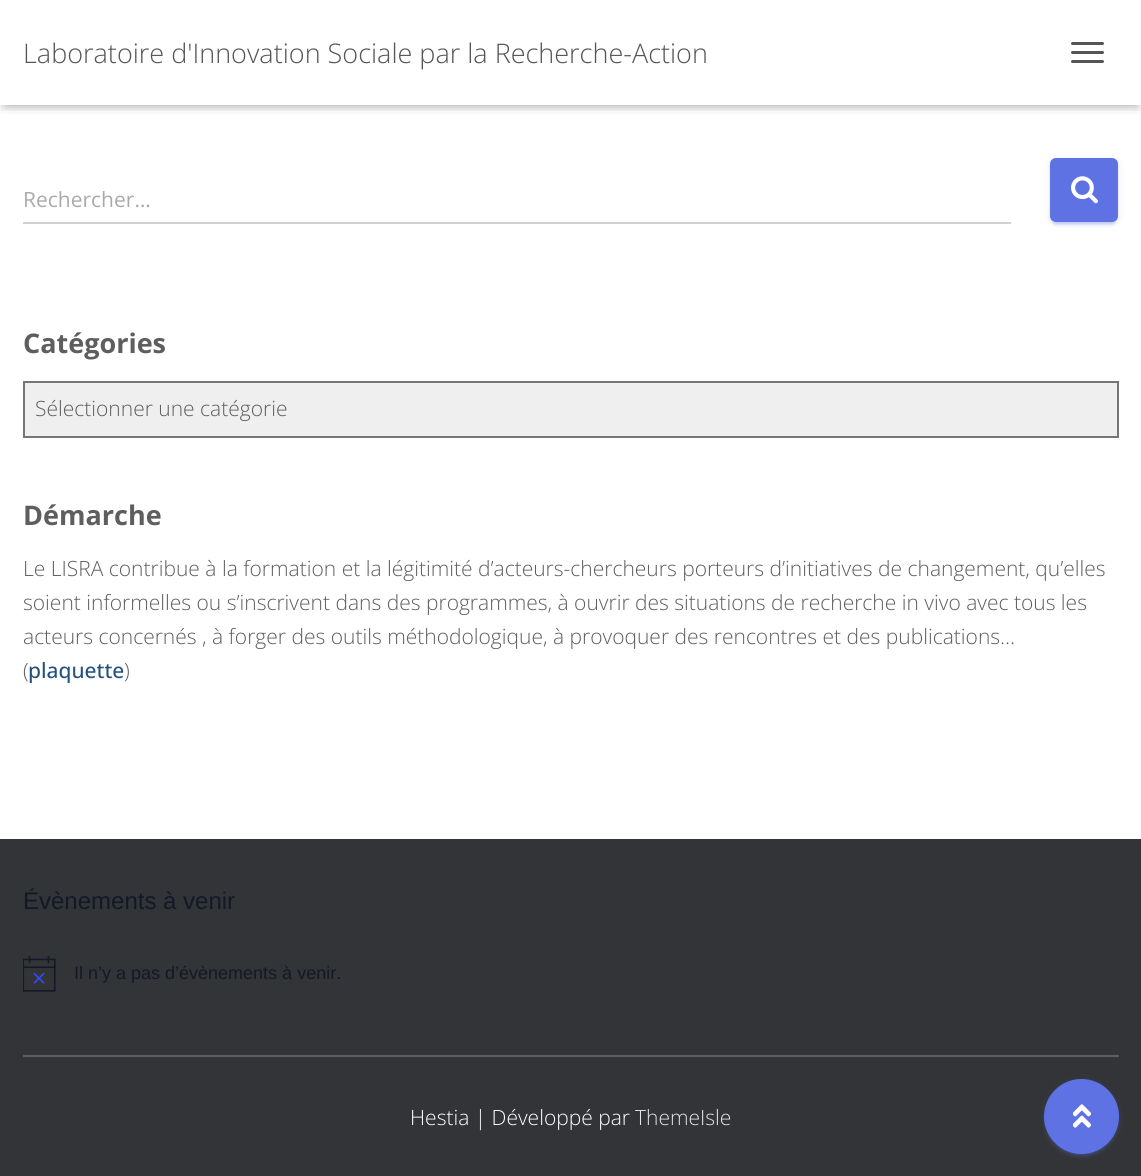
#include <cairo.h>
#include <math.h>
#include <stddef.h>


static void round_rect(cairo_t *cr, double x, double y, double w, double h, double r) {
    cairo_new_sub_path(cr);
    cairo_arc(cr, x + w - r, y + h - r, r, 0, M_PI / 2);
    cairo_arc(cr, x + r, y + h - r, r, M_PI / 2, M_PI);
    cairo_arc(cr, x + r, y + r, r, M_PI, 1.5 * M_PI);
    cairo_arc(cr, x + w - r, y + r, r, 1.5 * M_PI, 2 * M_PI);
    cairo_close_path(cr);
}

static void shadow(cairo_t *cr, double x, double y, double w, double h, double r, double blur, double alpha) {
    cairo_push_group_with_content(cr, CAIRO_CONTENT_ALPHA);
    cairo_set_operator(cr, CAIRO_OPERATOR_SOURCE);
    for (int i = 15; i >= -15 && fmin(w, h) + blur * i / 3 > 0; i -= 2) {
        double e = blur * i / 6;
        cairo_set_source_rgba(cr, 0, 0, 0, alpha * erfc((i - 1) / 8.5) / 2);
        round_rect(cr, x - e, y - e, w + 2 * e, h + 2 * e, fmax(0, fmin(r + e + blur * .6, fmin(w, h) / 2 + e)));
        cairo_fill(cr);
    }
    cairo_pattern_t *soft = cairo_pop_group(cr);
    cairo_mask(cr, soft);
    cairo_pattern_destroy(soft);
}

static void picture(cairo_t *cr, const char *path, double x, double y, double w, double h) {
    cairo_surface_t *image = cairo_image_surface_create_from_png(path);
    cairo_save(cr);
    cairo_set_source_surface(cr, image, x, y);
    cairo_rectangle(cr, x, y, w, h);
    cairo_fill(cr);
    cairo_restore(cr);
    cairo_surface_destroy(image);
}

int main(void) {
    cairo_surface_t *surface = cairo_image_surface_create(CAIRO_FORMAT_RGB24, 1141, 1176);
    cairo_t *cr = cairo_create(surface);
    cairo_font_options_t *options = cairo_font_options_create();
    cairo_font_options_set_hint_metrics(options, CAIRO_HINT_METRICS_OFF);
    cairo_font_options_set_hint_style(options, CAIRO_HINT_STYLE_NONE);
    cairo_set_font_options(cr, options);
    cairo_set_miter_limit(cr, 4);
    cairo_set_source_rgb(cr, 1, 1, 1);
    cairo_paint(cr);
    cairo_save(cr);
    cairo_rectangle(cr, 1, 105, 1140, 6);
    cairo_clip(cr);
    cairo_set_source_rgb(cr, 0, 0, 0);
    shadow(cr, 3, 9, 1136, 99, 0, 4, 0.1);
    cairo_restore(cr);
    cairo_save(cr);
    cairo_rectangle(cr, 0, 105, 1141, 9);
    cairo_clip(cr);
    cairo_set_source_rgb(cr, 0, 0, 0);
    shadow(cr, 0, 2, 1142, 105, 0, 7.5, 0.12);
    cairo_restore(cr);
    cairo_save(cr);
    cairo_rectangle(cr, 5, 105, 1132, 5);
    cairo_clip(cr);
    cairo_set_source_rgb(cr, 0, 0, 0);
    shadow(cr, 9, 11, 1124, 87, 0, 7.5, 0.42);
    cairo_restore(cr);
    cairo_select_font_face(cr, "Open Sans Light", CAIRO_FONT_SLANT_NORMAL, CAIRO_FONT_WEIGHT_NORMAL);
    cairo_set_font_size(cr, 27);
    cairo_set_source_rgb(cr, 0.333, 0.333, 0.333);
    cairo_move_to(cr, 23, 63);
    cairo_show_text(cr, "Laboratoire d'Innovation Sociale par la Recherche-Action");
    round_rect(cr, 1071, 42, 33, 3, 1.5);
    cairo_fill(cr);
    round_rect(cr, 1071, 51, 33, 3, 1.5);
    cairo_fill(cr);
    round_rect(cr, 1071, 60, 33, 3, 1.5);
    cairo_fill(cr);
    cairo_select_font_face(cr, "Open Sans", CAIRO_FONT_SLANT_NORMAL, CAIRO_FONT_WEIGHT_NORMAL);
    cairo_set_font_size(cr, 21);
    cairo_set_source_rgb(cr, 0.667, 0.667, 0.667);
    cairo_move_to(cr, 23, 207);
    cairo_show_text(cr, "Rechercher…");
    cairo_set_source_rgb(cr, 0.824, 0.824, 0.824);
    cairo_rectangle(cr, 23, 222, 988, 2);
    cairo_fill(cr);
    cairo_set_source_rgb(cr, 0.369, 0.447, 0.894);
    shadow(cr, 1050, 159, 68, 65, 6, 4, 0.12);
    shadow(cr, 1053, 165, 62, 59, 3, 1, 0.2);
    shadow(cr, 1050, 161, 68, 64, 6, 1.5, 0.14);
    cairo_set_source_rgb(cr, 0.369, 0.447, 0.894);
    round_rect(cr, 1050, 158, 68, 64, 6);
    cairo_fill(cr);
    picture(cr, "img1.png", 1071, 176, 27, 28);
    cairo_select_font_face(cr, "Open Sans", CAIRO_FONT_SLANT_NORMAL, CAIRO_FONT_WEIGHT_BOLD);
    cairo_set_font_size(cr, 27);
    cairo_set_source_rgb(cr, 0.369, 0.369, 0.369);
    cairo_move_to(cr, 23, 353);
    cairo_show_text(cr, "Catégories");
    cairo_set_source_rgb(cr, 0.937, 0.937, 0.937);
    cairo_rectangle(cr, 24, 382, 1094, 55);
    cairo_fill_preserve(cr);
    cairo_set_source_rgb(cr, 0.463, 0.463, 0.463);
    cairo_stroke(cr);
    cairo_select_font_face(cr, "Open Sans Light", CAIRO_FONT_SLANT_NORMAL, CAIRO_FONT_WEIGHT_NORMAL);
    cairo_set_font_size(cr, 21);
    cairo_set_source_rgb(cr, 0.369, 0.369, 0.369);
    cairo_move_to(cr, 35, 416);
    cairo_show_text(cr, "Sélectionner une catégorie");
    cairo_select_font_face(cr, "Open Sans", CAIRO_FONT_SLANT_NORMAL, CAIRO_FONT_WEIGHT_BOLD);
    cairo_set_font_size(cr, 27);
    cairo_move_to(cr, 23, 525);
    cairo_show_text(cr, "Démarche");
    cairo_select_font_face(cr, "Open Sans Light", CAIRO_FONT_SLANT_NORMAL, CAIRO_FONT_WEIGHT_NORMAL);
    cairo_set_font_size(cr, 21);
    cairo_move_to(cr, 23, 576);
    cairo_show_text(cr, "Le LISRA contribue à la formation et la légitimité d’acteurs-chercheurs porteurs d’initiatives de changement, qu’elles");
    cairo_move_to(cr, 23, 610);
    cairo_show_text(cr, "soient informelles ou s’inscrivent dans des programmes, à ouvrir des situations de recherche in vivo avec tous les");
    cairo_move_to(cr, 23, 644);
    cairo_show_text(cr, "acteurs concernés , à forger des outils méthodologique, à provoquer des rencontres et des publications…");
    cairo_move_to(cr, 23, 678);
    cairo_show_text(cr, "(");
    cairo_select_font_face(cr, "Open Sans Medium", CAIRO_FONT_SLANT_NORMAL, CAIRO_FONT_WEIGHT_NORMAL);
    cairo_set_source_rgb(cr, 0.137, 0.322, 0.486);
    cairo_move_to(cr, 28, 678);
    cairo_show_text(cr, "plaquette");
    cairo_select_font_face(cr, "Open Sans Light", CAIRO_FONT_SLANT_NORMAL, CAIRO_FONT_WEIGHT_NORMAL);
    cairo_set_source_rgb(cr, 0.369, 0.369, 0.369);
    cairo_move_to(cr, 124, 678);
    cairo_show_text(cr, ")");
    cairo_set_source_rgb(cr, 0.196, 0.204, 0.216);
    cairo_rectangle(cr, 0, 839, 1141, 337);
    cairo_fill(cr);
    cairo_select_font_face(cr, "Liberation Sans", CAIRO_FONT_SLANT_NORMAL, CAIRO_FONT_WEIGHT_NORMAL);
    cairo_set_font_size(cr, 24);
    cairo_set_source_rgb(cr, 0.078, 0.094, 0.153);
    cairo_move_to(cr, 23, 909);
    cairo_show_text(cr, "Évènements à venir");
    picture(cr, "img2.png", 23, 956, 33, 36);
    cairo_set_font_size(cr, 18);
    cairo_move_to(cr, 74, 979);
    cairo_show_text(cr, "Il n’y a pas d’évènements à venir.");
    cairo_set_source_rgb(cr, 0.369, 0.369, 0.369);
    cairo_rectangle(cr, 23, 1055, 1096, 2);
    cairo_fill(cr);
    cairo_select_font_face(cr, "Open Sans Light", CAIRO_FONT_SLANT_NORMAL, CAIRO_FONT_WEIGHT_NORMAL);
    cairo_set_font_size(cr, 21);
    cairo_set_source_rgb(cr, 1, 1, 1);
    cairo_move_to(cr, 410, 1125);
    cairo_show_text(cr, "Hestia | Développé par");
    cairo_set_source_rgb(cr, 0.886, 0.89, 0.89);
    cairo_move_to(cr, 635, 1125);
    cairo_show_text(cr, "ThemeIsle");
    cairo_set_source_rgb(cr, 0.369, 0.447, 0.894);
    shadow(cr, 1044, 1080, 75, 75, 37.5, 4, 0.12);
    shadow(cr, 1047, 1086, 69, 69, 34.5, 1, 0.2);
    shadow(cr, 1044, 1082, 75, 75, 37.5, 1.5, 0.14);
    cairo_set_source_rgb(cr, 0.369, 0.447, 0.894);
    cairo_arc(cr, 1081.5, 1116.5, 37.5, 0, 2 * M_PI);
    cairo_fill(cr);
    picture(cr, "img3.png", 1073, 1104, 18, 24);
    cairo_surface_write_to_png(surface, "page.png");
    cairo_font_options_destroy(options);
    cairo_destroy(cr);
    cairo_surface_destroy(surface);
    return 0;
}
